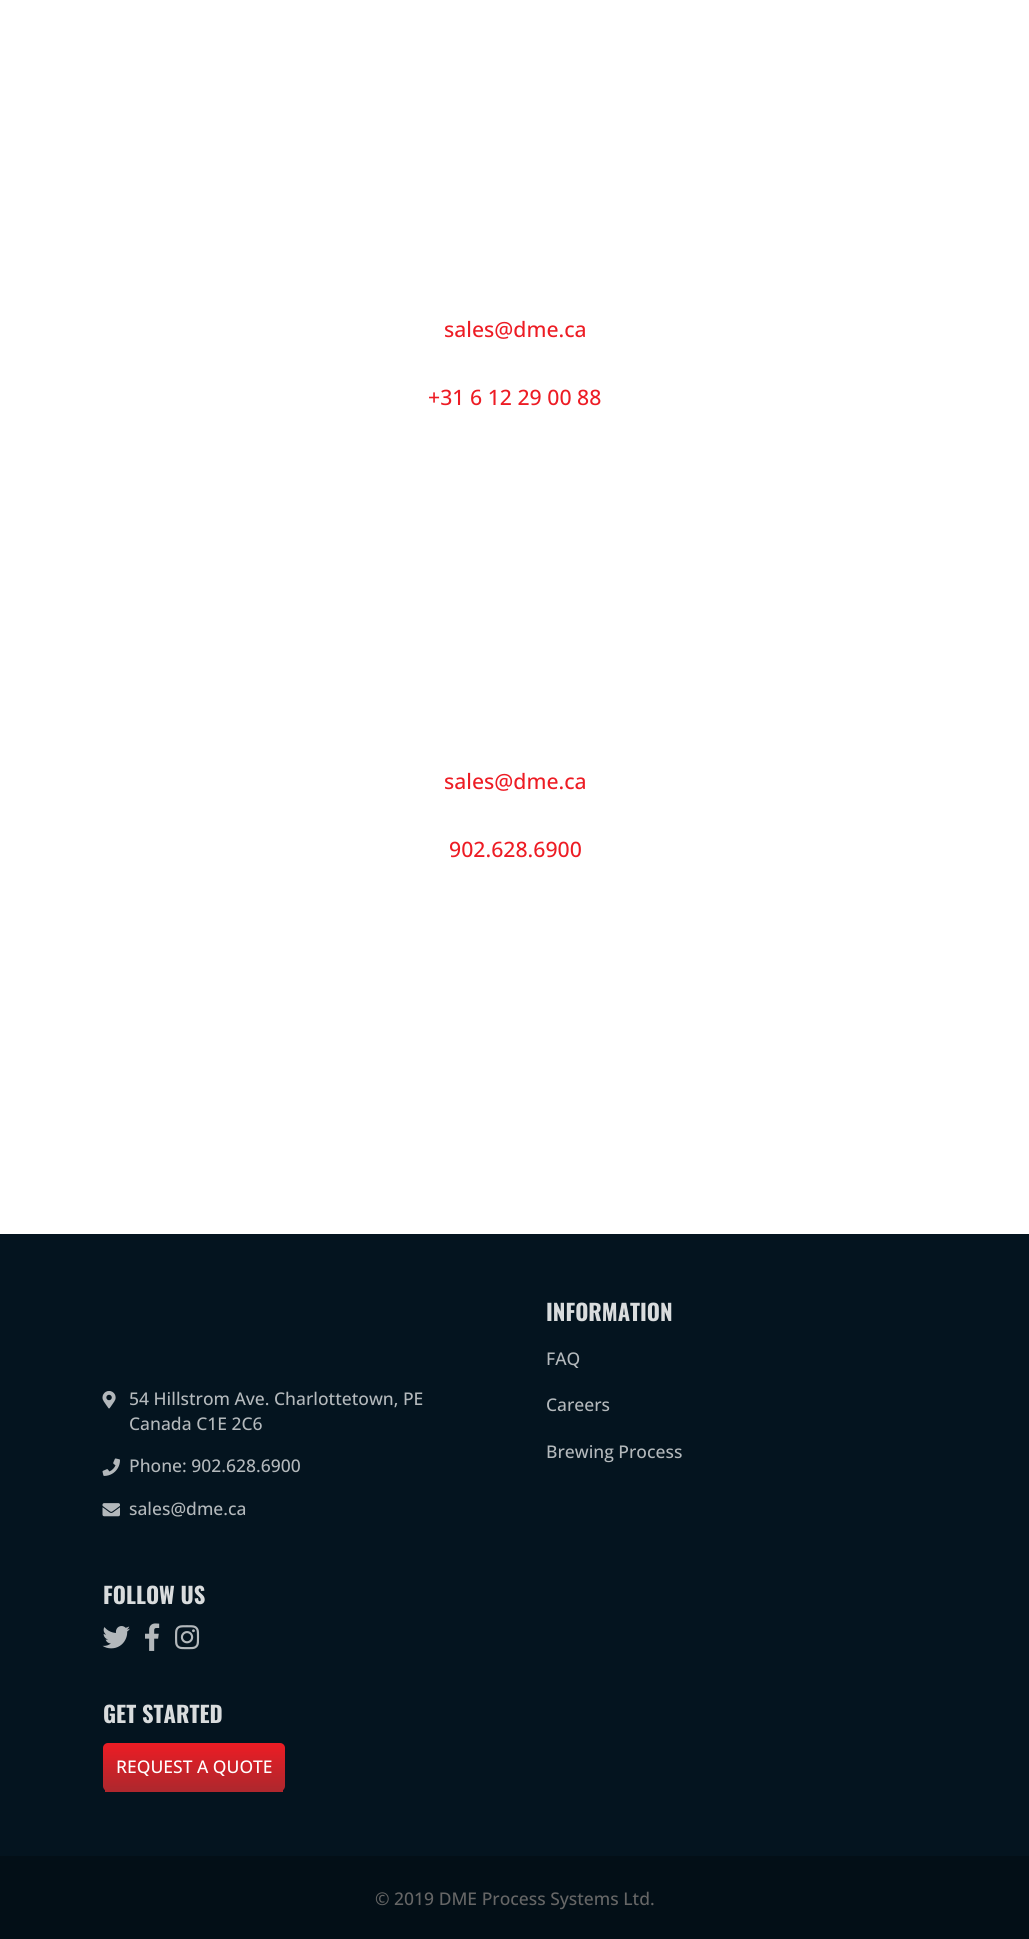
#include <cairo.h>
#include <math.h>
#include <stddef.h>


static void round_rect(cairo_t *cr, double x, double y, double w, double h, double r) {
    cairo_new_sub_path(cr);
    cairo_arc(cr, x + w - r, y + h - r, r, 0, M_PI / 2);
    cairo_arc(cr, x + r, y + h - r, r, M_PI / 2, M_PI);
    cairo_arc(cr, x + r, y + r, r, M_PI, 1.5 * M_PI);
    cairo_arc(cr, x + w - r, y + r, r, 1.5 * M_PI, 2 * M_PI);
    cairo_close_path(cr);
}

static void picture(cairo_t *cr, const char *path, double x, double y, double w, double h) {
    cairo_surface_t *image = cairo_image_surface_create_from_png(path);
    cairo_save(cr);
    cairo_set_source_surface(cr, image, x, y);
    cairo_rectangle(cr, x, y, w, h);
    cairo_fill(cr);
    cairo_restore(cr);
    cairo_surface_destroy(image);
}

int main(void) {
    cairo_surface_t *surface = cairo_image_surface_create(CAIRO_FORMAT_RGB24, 1029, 1939);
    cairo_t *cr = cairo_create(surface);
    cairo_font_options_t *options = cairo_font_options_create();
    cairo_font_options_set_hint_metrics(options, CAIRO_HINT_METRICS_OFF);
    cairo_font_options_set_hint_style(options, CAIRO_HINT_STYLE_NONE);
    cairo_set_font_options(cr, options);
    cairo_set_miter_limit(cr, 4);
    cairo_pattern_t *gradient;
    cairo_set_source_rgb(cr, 1, 1, 1);
    cairo_paint(cr);
    cairo_select_font_face(cr, "Open Sans Medium", CAIRO_FONT_SLANT_NORMAL, CAIRO_FONT_WEIGHT_NORMAL);
    cairo_set_font_size(cr, 21.25);
    cairo_set_source_rgb(cr, 0.929, 0.11, 0.141);
    cairo_move_to(cr, 444, 337);
    cairo_show_text(cr, "sales@dme.ca");
    cairo_move_to(cr, 428, 405);
    cairo_show_text(cr, "+31 6 12 29 00 88");
    cairo_move_to(cr, 444, 789);
    cairo_show_text(cr, "sales@dme.ca");
    cairo_move_to(cr, 449, 857);
    cairo_show_text(cr, "902.628.6900");
    cairo_set_source_rgb(cr, 0.016, 0.082, 0.122);
    cairo_rectangle(cr, 0, 1234, 1029, 622);
    cairo_fill(cr);
    picture(cr, "img1.png", 102, 1391, 14, 18);
    cairo_set_font_size(cr, 17.5);
    cairo_set_source_rgb(cr, 0.706, 0.725, 0.737);
    cairo_move_to(cr, 129, 1405);
    cairo_show_text(cr, "54 Hillstrom Ave. Charlottetown, PE");
    cairo_move_to(cr, 129, 1430);
    cairo_show_text(cr, "Canada C1E 2C6");
    picture(cr, "img2.png", 102, 1458, 18, 18);
    cairo_move_to(cr, 129, 1472);
    cairo_show_text(cr, "Phone: 902.628.6900");
    picture(cr, "img3.png", 102, 1503, 18, 14);
    cairo_move_to(cr, 129, 1515);
    cairo_show_text(cr, "sales@dme.ca");
    cairo_select_font_face(cr, "Oswald", CAIRO_FONT_SLANT_NORMAL, CAIRO_FONT_WEIGHT_BOLD);
    cairo_set_font_size(cr, 22.5);
    cairo_set_source_rgb(cr, 0.851, 0.863, 0.867);
    cairo_move_to(cr, 546, 1321);
    cairo_show_text(cr, "INFORMATION");
    cairo_select_font_face(cr, "Open Sans Medium", CAIRO_FONT_SLANT_NORMAL, CAIRO_FONT_WEIGHT_NORMAL);
    cairo_set_font_size(cr, 17.5);
    cairo_set_source_rgb(cr, 0.706, 0.725, 0.737);
    cairo_move_to(cr, 546, 1365);
    cairo_show_text(cr, "FAQ");
    cairo_move_to(cr, 546, 1411);
    cairo_show_text(cr, "Careers");
    cairo_move_to(cr, 546, 1458);
    cairo_show_text(cr, "Brewing Process");
    cairo_select_font_face(cr, "Oswald", CAIRO_FONT_SLANT_NORMAL, CAIRO_FONT_WEIGHT_BOLD);
    cairo_set_font_size(cr, 22.5);
    cairo_set_source_rgb(cr, 0.851, 0.863, 0.867);
    cairo_move_to(cr, 103, 1604);
    cairo_show_text(cr, "FOLLOW US");
    picture(cr, "img4.png", 102, 1626, 28, 23);
    picture(cr, "img5.png", 145, 1623, 15, 28);
    picture(cr, "img6.png", 175, 1625, 25, 25);
    cairo_move_to(cr, 103, 1723);
    cairo_show_text(cr, "GET STARTED");
    cairo_save(cr);
    round_rect(cr, 103, 1743, 182, 48, 5);
    cairo_clip(cr);
    gradient = cairo_pattern_create_linear(194, 1743, 194, 1789);
    cairo_pattern_add_color_stop_rgba(gradient, 0, 0.929, 0.11, 0.141, 1);
    cairo_pattern_add_color_stop_rgba(gradient, 1, 0.69, 0.153, 0.176, 1);
    cairo_set_source(cr, gradient);
    cairo_pattern_destroy(gradient);
    cairo_new_path(cr);
    cairo_move_to(cr, 108, 1743);
    cairo_line_to(cr, 280, 1743);
    cairo_curve_to(cr, 283, 1743, 285, 1745, 285, 1748);
    cairo_line_to(cr, 285, 1789);
    cairo_line_to(cr, 103, 1789);
    cairo_line_to(cr, 103, 1748);
    cairo_curve_to(cr, 103, 1745, 105, 1743, 108, 1743);
    cairo_close_path(cr);
    cairo_fill(cr);
    cairo_restore(cr);
    cairo_select_font_face(cr, "Open Sans Medium", CAIRO_FONT_SLANT_NORMAL, CAIRO_FONT_WEIGHT_NORMAL);
    cairo_set_font_size(cr, 17.5);
    cairo_set_source_rgb(cr, 1, 1, 1);
    cairo_move_to(cr, 116, 1773);
    cairo_show_text(cr, "REQUEST A QUOTE");
    cairo_save(cr);
    round_rect(cr, 103, 1743, 182, 48, 5);
    cairo_clip(cr);
    gradient = cairo_pattern_create_linear(194, 1789, 194, 1835);
    cairo_pattern_add_color_stop_rgba(gradient, 0, 0.929, 0.11, 0.141, 1);
    cairo_pattern_add_color_stop_rgba(gradient, 1, 0.69, 0.153, 0.176, 1);
    cairo_set_source(cr, gradient);
    cairo_pattern_destroy(gradient);
    cairo_rectangle(cr, 103, 1789, 182, 1);
    cairo_fill(cr);
    cairo_restore(cr);
    cairo_set_source_rgb(cr, 0.69, 0.153, 0.176);
    cairo_rectangle(cr, 105, 1789, 178, 3);
    cairo_fill(cr);
    cairo_set_source_rgb(cr, 0.012, 0.059, 0.09);
    cairo_rectangle(cr, 0, 1856, 1029, 83);
    cairo_fill(cr);
    cairo_set_source_rgb(cr, 0.4, 0.4, 0.4);
    cairo_move_to(cr, 375, 1905);
    cairo_show_text(cr, "© 2019 DME Process Systems Ltd.");
    cairo_surface_write_to_png(surface, "page.png");
    cairo_font_options_destroy(options);
    cairo_destroy(cr);
    cairo_surface_destroy(surface);
    return 0;
}
